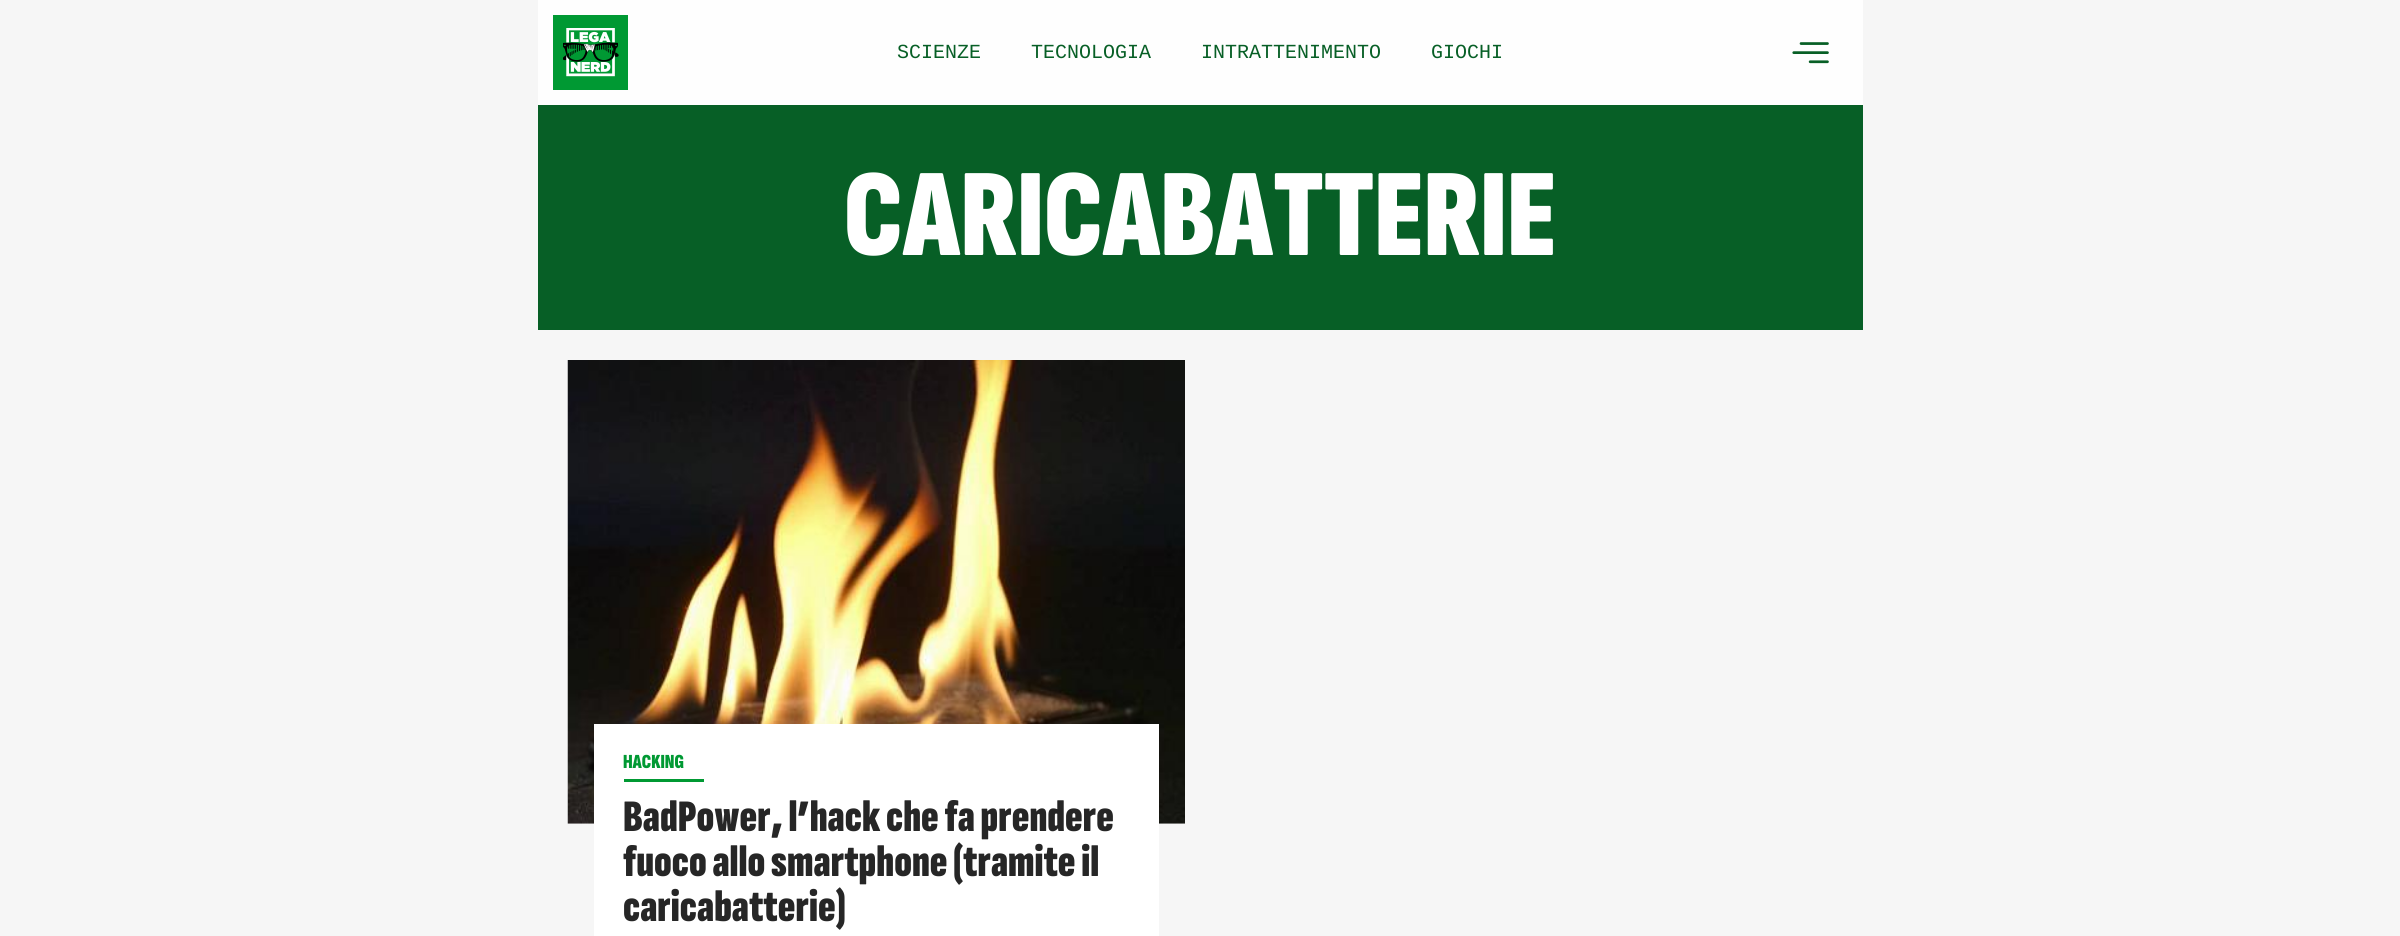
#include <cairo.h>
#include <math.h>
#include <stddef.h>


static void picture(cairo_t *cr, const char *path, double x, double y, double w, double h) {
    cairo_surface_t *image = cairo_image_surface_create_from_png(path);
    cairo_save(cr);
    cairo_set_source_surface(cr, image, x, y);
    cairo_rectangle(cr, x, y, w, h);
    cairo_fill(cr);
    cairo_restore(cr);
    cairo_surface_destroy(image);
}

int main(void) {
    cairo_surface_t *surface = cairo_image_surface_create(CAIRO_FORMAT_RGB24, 2400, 936);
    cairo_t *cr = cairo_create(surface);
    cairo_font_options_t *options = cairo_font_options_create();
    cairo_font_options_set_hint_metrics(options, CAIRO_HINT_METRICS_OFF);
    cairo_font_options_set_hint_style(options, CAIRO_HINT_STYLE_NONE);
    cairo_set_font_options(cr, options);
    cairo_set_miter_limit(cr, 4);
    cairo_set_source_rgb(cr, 0.961, 0.961, 0.961);
    cairo_paint(cr);
    cairo_set_source_rgb(cr, 0.996, 0.996, 0.996);
    cairo_rectangle(cr, 538, 0, 1325, 105);
    cairo_fill(cr);
    cairo_set_source_rgb(cr, 0, 0.6, 0.2);
    cairo_rectangle(cr, 553, 15, 75, 75);
    cairo_fill(cr);
    picture(cr, "img1.png", 563, 28, 56, 49);
    cairo_select_font_face(cr, "Liberation Mono", CAIRO_FONT_SLANT_NORMAL, CAIRO_FONT_WEIGHT_NORMAL);
    cairo_set_font_size(cr, 20);
    cairo_set_source_rgb(cr, 0.031, 0.373, 0.149);
    cairo_move_to(cr, 897, 58);
    cairo_show_text(cr, "SCIENZE");
    cairo_move_to(cr, 1031, 58);
    cairo_show_text(cr, "TECNOLOGIA");
    cairo_move_to(cr, 1201, 58);
    cairo_show_text(cr, "INTRATTENIMENTO");
    cairo_move_to(cr, 1431, 58);
    cairo_show_text(cr, "GIOCHI");
    picture(cr, "img2.png", 1792, 42, 37, 22);
    cairo_rectangle(cr, 538, 105, 1325, 225);
    cairo_fill(cr);
    cairo_select_font_face(cr, "Sofia Sans Extra Condensed Black", CAIRO_FONT_SLANT_NORMAL, CAIRO_FONT_WEIGHT_NORMAL);
    cairo_set_font_size(cr, 125);
    cairo_set_source_rgb(cr, 1, 1, 1);
    cairo_move_to(cr, 844, 255);
    cairo_show_text(cr, "CARICABATTERIE");
    picture(cr, "img3.png", 567, 360, 618, 464);
    cairo_rectangle(cr, 594, 724, 565, 212);
    cairo_fill(cr);
    cairo_set_source_rgb(cr, 0, 0.6, 0.2);
    cairo_rectangle(cr, 624, 779, 80, 3);
    cairo_fill(cr);
    cairo_set_font_size(cr, 20);
    cairo_move_to(cr, 623, 768);
    cairo_show_text(cr, "HACKING");
    cairo_set_font_size(cr, 45);
    cairo_set_source_rgb(cr, 0.149, 0.149, 0.149);
    cairo_move_to(cr, 623, 831);
    cairo_show_text(cr, "BadPower, l’hack che fa prendere");
    cairo_move_to(cr, 623, 876);
    cairo_show_text(cr, "fuoco allo smartphone (tramite il");
    cairo_move_to(cr, 623, 921);
    cairo_show_text(cr, "caricabatterie)");
    cairo_surface_write_to_png(surface, "page.png");
    cairo_font_options_destroy(options);
    cairo_destroy(cr);
    cairo_surface_destroy(surface);
    return 0;
}
